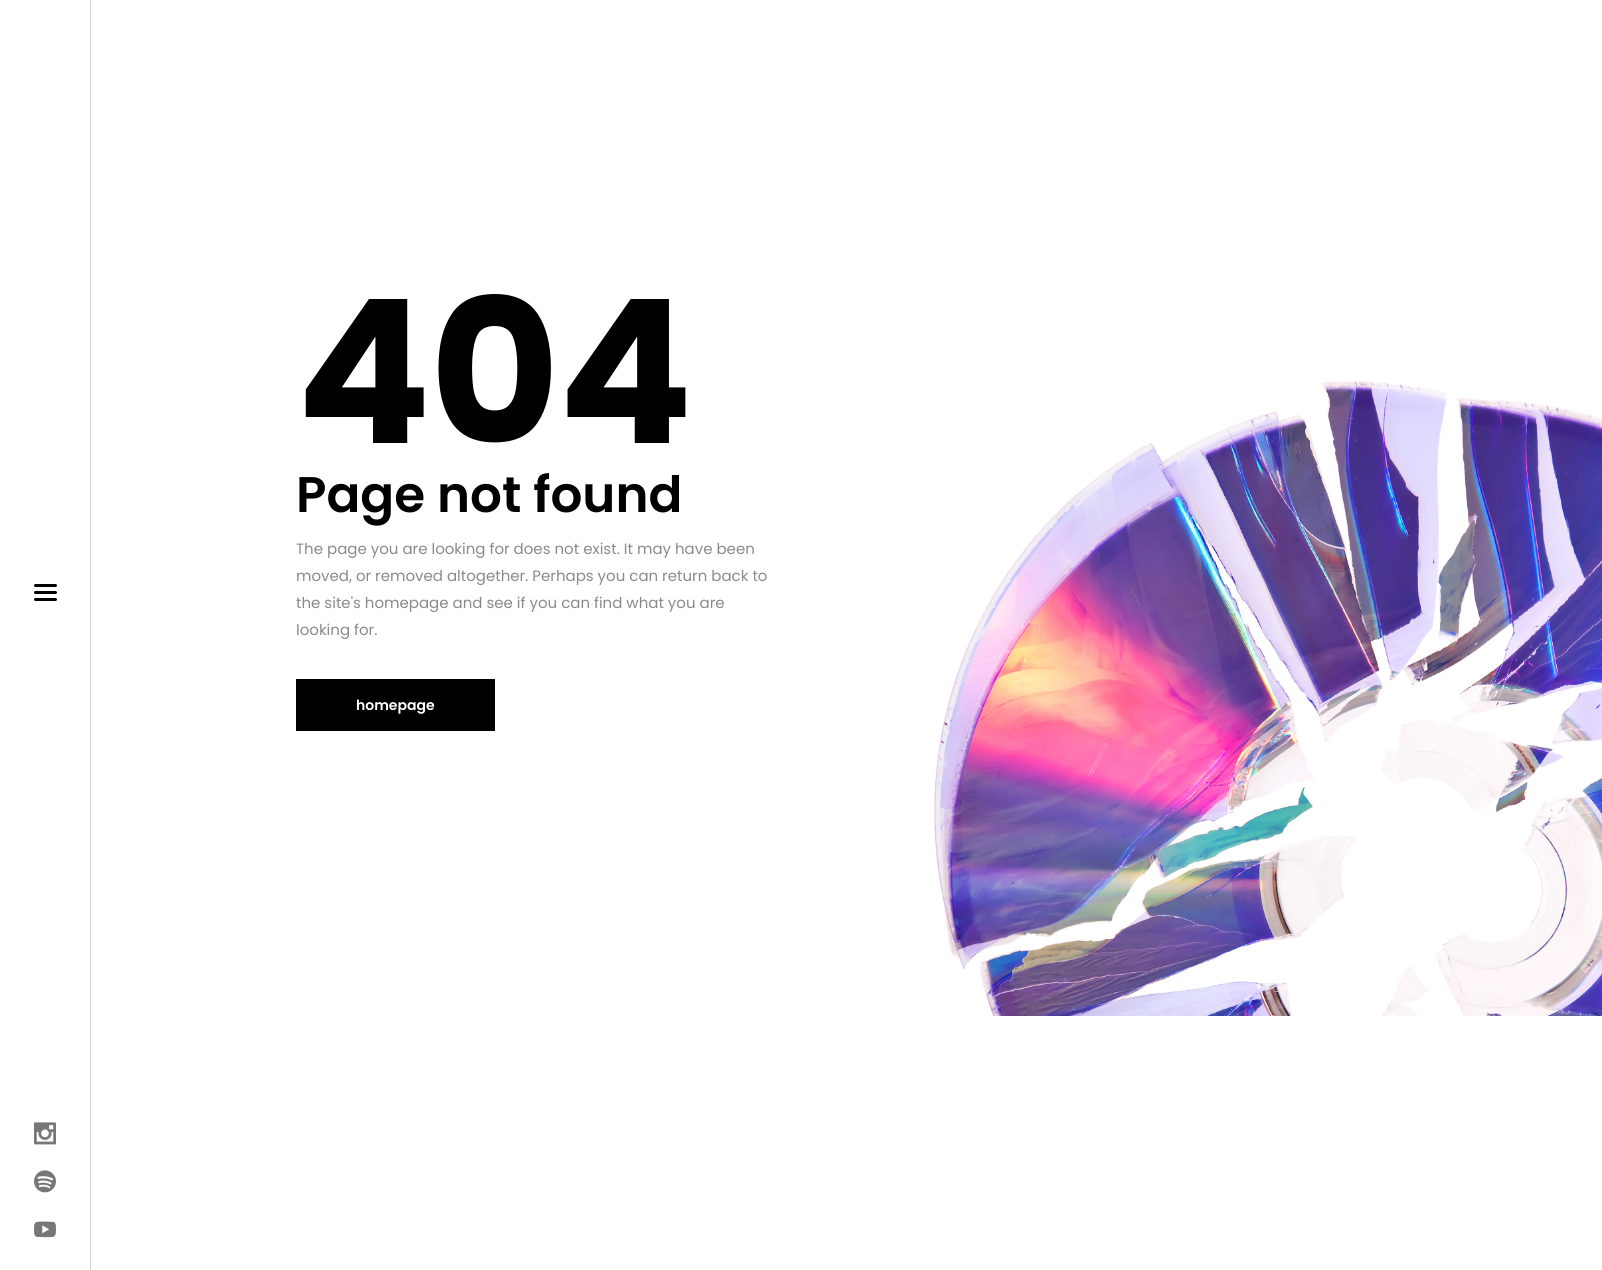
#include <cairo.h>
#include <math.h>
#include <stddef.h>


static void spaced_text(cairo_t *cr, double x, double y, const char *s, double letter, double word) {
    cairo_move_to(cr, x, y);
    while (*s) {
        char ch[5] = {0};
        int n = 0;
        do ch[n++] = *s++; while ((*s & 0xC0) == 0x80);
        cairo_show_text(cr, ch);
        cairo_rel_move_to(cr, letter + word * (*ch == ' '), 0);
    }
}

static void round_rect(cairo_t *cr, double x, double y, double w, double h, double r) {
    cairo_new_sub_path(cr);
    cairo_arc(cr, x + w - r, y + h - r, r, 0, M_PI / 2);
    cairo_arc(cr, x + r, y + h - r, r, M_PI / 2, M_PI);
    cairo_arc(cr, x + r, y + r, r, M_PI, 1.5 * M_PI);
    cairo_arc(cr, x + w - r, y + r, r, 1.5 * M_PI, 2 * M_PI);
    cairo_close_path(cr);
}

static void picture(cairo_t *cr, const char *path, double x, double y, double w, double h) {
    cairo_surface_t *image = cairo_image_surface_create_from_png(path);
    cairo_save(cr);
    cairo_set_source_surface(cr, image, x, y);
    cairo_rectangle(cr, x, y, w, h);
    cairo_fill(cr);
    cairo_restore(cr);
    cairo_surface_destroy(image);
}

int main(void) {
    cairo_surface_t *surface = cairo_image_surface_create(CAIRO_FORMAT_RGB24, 1602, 1270);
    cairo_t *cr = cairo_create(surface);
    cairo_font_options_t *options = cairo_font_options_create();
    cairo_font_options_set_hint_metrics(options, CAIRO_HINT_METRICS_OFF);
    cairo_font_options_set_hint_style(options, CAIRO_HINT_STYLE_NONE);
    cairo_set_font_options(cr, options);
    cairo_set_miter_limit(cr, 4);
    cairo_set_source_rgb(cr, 1, 1, 1);
    cairo_paint(cr);
    cairo_set_source_rgb(cr, 0, 0, 0);
    round_rect(cr, 34, 591, 23, 3, 1.5);
    cairo_fill(cr);
    round_rect(cr, 34, 584, 23, 3, 1.5);
    cairo_fill(cr);
    round_rect(cr, 34, 598, 23, 3, 1.5);
    cairo_fill(cr);
    picture(cr, "img1.png", 34, 1122, 22, 23);
    picture(cr, "img2.png", 34, 1170, 22, 23);
    picture(cr, "img3.png", 34, 1221, 22, 17);
    cairo_set_source_rgb(cr, 0.824, 0.824, 0.824);
    cairo_rectangle(cr, 90, 0, 1, 1270);
    cairo_fill(cr);
    cairo_select_font_face(cr, "Poppins", CAIRO_FONT_SLANT_NORMAL, CAIRO_FONT_WEIGHT_BOLD);
    cairo_set_font_size(cr, 200);
    cairo_set_source_rgb(cr, 0, 0, 0);
    spaced_text(cr, 296, 443, "404", -2, 0);
    cairo_select_font_face(cr, "Poppins SemiBold", CAIRO_FONT_SLANT_NORMAL, CAIRO_FONT_WEIGHT_NORMAL);
    cairo_set_font_size(cr, 50);
    cairo_move_to(cr, 296, 512);
    cairo_show_text(cr, "Page not found");
    cairo_select_font_face(cr, "Poppins", CAIRO_FONT_SLANT_NORMAL, CAIRO_FONT_WEIGHT_NORMAL);
    cairo_set_font_size(cr, 15);
    cairo_set_source_rgb(cr, 0.541, 0.541, 0.541);
    cairo_move_to(cr, 296, 554);
    cairo_show_text(cr, "The page you are looking for does not exist. It may have been");
    cairo_move_to(cr, 296, 581);
    cairo_show_text(cr, "moved, or removed altogether. Perhaps you can return back to");
    cairo_move_to(cr, 296, 608);
    cairo_show_text(cr, "the site's homepage and see if you can find what you are");
    cairo_move_to(cr, 296, 635);
    cairo_show_text(cr, "looking for.");
    cairo_set_source_rgb(cr, 0, 0, 0);
    cairo_rectangle(cr, 296, 679, 199, 52);
    cairo_fill(cr);
    cairo_select_font_face(cr, "Poppins SemiBold", CAIRO_FONT_SLANT_NORMAL, CAIRO_FONT_WEIGHT_NORMAL);
    cairo_set_font_size(cr, 14);
    cairo_set_source_rgb(cr, 1, 1, 1);
    cairo_move_to(cr, 356, 710);
    cairo_show_text(cr, "homepage");
    picture(cr, "img4.png", 934, 381, 668, 635);
    cairo_surface_write_to_png(surface, "page.png");
    cairo_font_options_destroy(options);
    cairo_destroy(cr);
    cairo_surface_destroy(surface);
    return 0;
}
